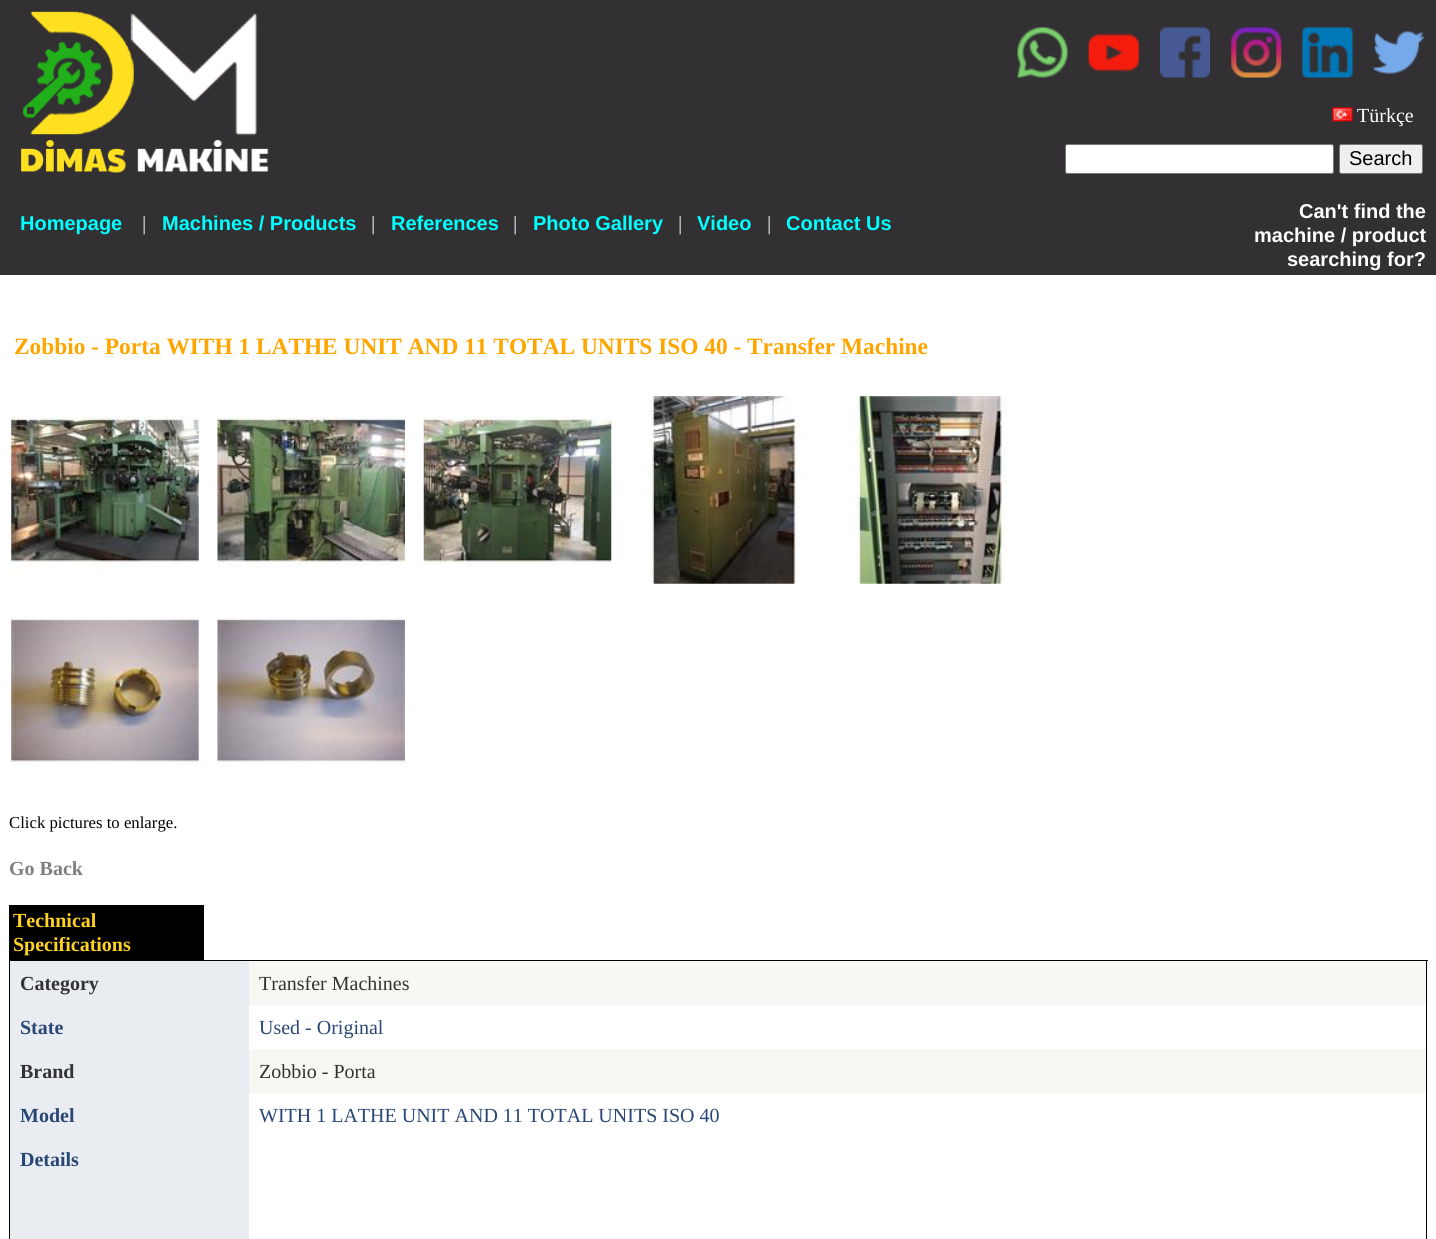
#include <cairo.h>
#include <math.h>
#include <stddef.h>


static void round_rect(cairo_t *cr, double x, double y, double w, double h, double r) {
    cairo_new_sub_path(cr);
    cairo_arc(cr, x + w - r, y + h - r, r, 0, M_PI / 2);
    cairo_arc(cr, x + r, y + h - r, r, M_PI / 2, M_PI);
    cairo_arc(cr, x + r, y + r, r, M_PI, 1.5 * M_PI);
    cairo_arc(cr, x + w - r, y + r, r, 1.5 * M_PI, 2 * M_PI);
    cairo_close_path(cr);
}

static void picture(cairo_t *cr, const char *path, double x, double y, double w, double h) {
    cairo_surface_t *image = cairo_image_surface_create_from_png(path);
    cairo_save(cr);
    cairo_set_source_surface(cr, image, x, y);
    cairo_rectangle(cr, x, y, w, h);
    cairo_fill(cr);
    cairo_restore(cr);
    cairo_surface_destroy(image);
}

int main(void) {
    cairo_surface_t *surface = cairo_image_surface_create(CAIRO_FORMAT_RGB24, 1436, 1239);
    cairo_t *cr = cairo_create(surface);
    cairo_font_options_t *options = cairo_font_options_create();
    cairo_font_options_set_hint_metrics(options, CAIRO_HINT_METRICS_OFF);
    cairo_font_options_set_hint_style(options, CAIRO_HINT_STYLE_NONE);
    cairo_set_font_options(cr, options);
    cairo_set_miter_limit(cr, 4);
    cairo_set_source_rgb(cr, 1, 1, 1);
    cairo_paint(cr);
    cairo_set_source_rgb(cr, 0.2, 0.188, 0.2);
    cairo_rectangle(cr, 0, 0, 1436, 275);
    cairo_fill(cr);
    picture(cr, "img1.png", 21, 11, 248, 162);
    picture(cr, "img2.png", 1017, 27, 51, 51);
    picture(cr, "img3.png", 1088, 33, 51, 39);
    picture(cr, "img4.png", 1160, 27, 50, 51);
    picture(cr, "img5.png", 1231, 27, 51, 51);
    picture(cr, "img6.png", 1302, 27, 51, 51);
    picture(cr, "img7.png", 1373, 31, 51, 43);
    picture(cr, "img8.png", 1332, 107, 21, 15);
    cairo_select_font_face(cr, "Liberation Serif", CAIRO_FONT_SLANT_NORMAL, CAIRO_FONT_WEIGHT_NORMAL);
    cairo_set_font_size(cr, 20);
    cairo_set_source_rgb(cr, 1, 1, 1);
    cairo_move_to(cr, 1357, 122);
    cairo_show_text(cr, "Türkçe");
    round_rect(cr, 1065.5, 144.5, 268, 29, 2);
    cairo_fill_preserve(cr);
    cairo_set_source_rgb(cr, 0.463, 0.463, 0.463);
    cairo_set_line_width(cr, 1);
    cairo_stroke(cr);
    cairo_set_source_rgb(cr, 0.937, 0.937, 0.937);
    round_rect(cr, 1339.5, 144.5, 83, 29, 2);
    cairo_fill_preserve(cr);
    cairo_set_source_rgb(cr, 0.463, 0.463, 0.463);
    cairo_stroke(cr);
    cairo_select_font_face(cr, "Liberation Sans", CAIRO_FONT_SLANT_NORMAL, CAIRO_FONT_WEIGHT_NORMAL);
    cairo_set_source_rgb(cr, 0, 0, 0);
    cairo_move_to(cr, 1349, 165);
    cairo_show_text(cr, "Search");
    cairo_select_font_face(cr, "Liberation Sans", CAIRO_FONT_SLANT_NORMAL, CAIRO_FONT_WEIGHT_BOLD);
    cairo_set_source_rgb(cr, 0, 1, 1);
    cairo_move_to(cr, 20, 230);
    cairo_show_text(cr, "Homepage");
    cairo_select_font_face(cr, "Liberation Serif", CAIRO_FONT_SLANT_NORMAL, CAIRO_FONT_WEIGHT_BOLD);
    cairo_set_source_rgb(cr, 0.753, 0.753, 0.753);
    cairo_move_to(cr, 142, 230);
    cairo_show_text(cr, "|");
    cairo_select_font_face(cr, "Liberation Sans", CAIRO_FONT_SLANT_NORMAL, CAIRO_FONT_WEIGHT_BOLD);
    cairo_set_source_rgb(cr, 0, 1, 1);
    cairo_move_to(cr, 162, 230);
    cairo_show_text(cr, "Machines / Products");
    cairo_select_font_face(cr, "Liberation Serif", CAIRO_FONT_SLANT_NORMAL, CAIRO_FONT_WEIGHT_BOLD);
    cairo_set_source_rgb(cr, 0.753, 0.753, 0.753);
    cairo_move_to(cr, 371, 230);
    cairo_show_text(cr, "|");
    cairo_select_font_face(cr, "Liberation Sans", CAIRO_FONT_SLANT_NORMAL, CAIRO_FONT_WEIGHT_BOLD);
    cairo_set_source_rgb(cr, 0, 1, 1);
    cairo_move_to(cr, 391, 230);
    cairo_show_text(cr, "References");
    cairo_select_font_face(cr, "Liberation Serif", CAIRO_FONT_SLANT_NORMAL, CAIRO_FONT_WEIGHT_BOLD);
    cairo_set_source_rgb(cr, 0.753, 0.753, 0.753);
    cairo_move_to(cr, 513, 230);
    cairo_show_text(cr, "|");
    cairo_select_font_face(cr, "Liberation Sans", CAIRO_FONT_SLANT_NORMAL, CAIRO_FONT_WEIGHT_BOLD);
    cairo_set_source_rgb(cr, 0, 1, 1);
    cairo_move_to(cr, 533, 230);
    cairo_show_text(cr, "Photo Gallery");
    cairo_select_font_face(cr, "Liberation Serif", CAIRO_FONT_SLANT_NORMAL, CAIRO_FONT_WEIGHT_BOLD);
    cairo_set_source_rgb(cr, 0.753, 0.753, 0.753);
    cairo_move_to(cr, 678, 230);
    cairo_show_text(cr, "|");
    cairo_select_font_face(cr, "Liberation Sans", CAIRO_FONT_SLANT_NORMAL, CAIRO_FONT_WEIGHT_BOLD);
    cairo_set_source_rgb(cr, 0, 1, 1);
    cairo_move_to(cr, 697, 230);
    cairo_show_text(cr, "Video");
    cairo_select_font_face(cr, "Liberation Serif", CAIRO_FONT_SLANT_NORMAL, CAIRO_FONT_WEIGHT_BOLD);
    cairo_set_source_rgb(cr, 0.753, 0.753, 0.753);
    cairo_move_to(cr, 767, 230);
    cairo_show_text(cr, "|");
    cairo_select_font_face(cr, "Liberation Sans", CAIRO_FONT_SLANT_NORMAL, CAIRO_FONT_WEIGHT_BOLD);
    cairo_set_source_rgb(cr, 0, 1, 1);
    cairo_move_to(cr, 786, 230);
    cairo_show_text(cr, "Contact Us");
    cairo_set_source_rgb(cr, 1, 1, 1);
    cairo_move_to(cr, 1299, 218);
    cairo_show_text(cr, "Can't find the");
    cairo_move_to(cr, 1254, 242);
    cairo_show_text(cr, "machine / product");
    cairo_move_to(cr, 1287, 266);
    cairo_show_text(cr, "searching for?");
    cairo_select_font_face(cr, "Liberation Serif", CAIRO_FONT_SLANT_NORMAL, CAIRO_FONT_WEIGHT_BOLD);
    cairo_set_font_size(cr, 23.35);
    cairo_set_source_rgb(cr, 1, 0.647, 0);
    cairo_move_to(cr, 14, 354);
    cairo_show_text(cr, "Zobbio - Porta WITH 1 LATHE UNIT AND 11 TOTAL UNITS ISO 40 - Transfer Machine");
    picture(cr, "img9.png", 11, 416, 188, 160);
    picture(cr, "img10.png", 217, 416, 188, 155);
    picture(cr, "img11.png", 423, 416, 189, 150);
    picture(cr, "img12.png", 650, 396, 159, 188);
    picture(cr, "img13.png", 856, 396, 151, 188);
    picture(cr, "img14.png", 11, 617, 188, 148);
    picture(cr, "img15.png", 217, 618, 188, 148);
    cairo_select_font_face(cr, "Liberation Serif", CAIRO_FONT_SLANT_NORMAL, CAIRO_FONT_WEIGHT_NORMAL);
    cairo_set_font_size(cr, 16.75);
    cairo_set_source_rgb(cr, 0, 0, 0);
    cairo_move_to(cr, 9, 828);
    cairo_show_text(cr, "Click pictures to enlarge.");
    cairo_select_font_face(cr, "Liberation Serif", CAIRO_FONT_SLANT_NORMAL, CAIRO_FONT_WEIGHT_BOLD);
    cairo_set_font_size(cr, 20);
    cairo_set_source_rgb(cr, 0.502, 0.502, 0.502);
    cairo_move_to(cr, 9, 875);
    cairo_show_text(cr, "Go Back");
    cairo_set_source_rgb(cr, 0, 0, 0);
    cairo_rectangle(cr, 9, 905, 195, 55);
    cairo_fill(cr);
    cairo_set_source_rgb(cr, 1, 0.824, 0.125);
    cairo_move_to(cr, 13, 927);
    cairo_show_text(cr, "Technical");
    cairo_move_to(cr, 13, 951);
    cairo_show_text(cr, "Specifications");
    cairo_set_source_rgb(cr, 0, 0, 0);
    cairo_rectangle(cr, 9, 960, 1419, 1);
    cairo_fill(cr);
    cairo_set_source_rgb(cr, 0.969, 0.965, 0.953);
    cairo_rectangle(cr, 249, 961, 1179, 44);
    cairo_fill(cr);
    cairo_rectangle(cr, 249, 1049, 1179, 45);
    cairo_fill(cr);
    cairo_set_source_rgb(cr, 0, 0, 0);
    cairo_rectangle(cr, 1426, 960, 1, 279);
    cairo_fill(cr);
    cairo_rectangle(cr, 9, 960, 1, 279);
    cairo_fill(cr);
    cairo_set_source_rgb(cr, 0.914, 0.925, 0.945);
    cairo_rectangle(cr, 10, 961, 239, 278);
    cairo_fill(cr);
    cairo_set_source_rgb(cr, 0.2, 0.2, 0.2);
    cairo_move_to(cr, 20, 990);
    cairo_show_text(cr, "Category");
    cairo_select_font_face(cr, "Liberation Serif", CAIRO_FONT_SLANT_NORMAL, CAIRO_FONT_WEIGHT_NORMAL);
    cairo_move_to(cr, 259, 990);
    cairo_show_text(cr, "Transfer Machines");
    cairo_select_font_face(cr, "Liberation Serif", CAIRO_FONT_SLANT_NORMAL, CAIRO_FONT_WEIGHT_BOLD);
    cairo_set_source_rgb(cr, 0.157, 0.278, 0.459);
    cairo_move_to(cr, 20, 1034);
    cairo_show_text(cr, "State");
    cairo_select_font_face(cr, "Liberation Serif", CAIRO_FONT_SLANT_NORMAL, CAIRO_FONT_WEIGHT_NORMAL);
    cairo_move_to(cr, 259, 1034);
    cairo_show_text(cr, "Used - Original");
    cairo_select_font_face(cr, "Liberation Serif", CAIRO_FONT_SLANT_NORMAL, CAIRO_FONT_WEIGHT_BOLD);
    cairo_set_source_rgb(cr, 0.2, 0.2, 0.2);
    cairo_move_to(cr, 20, 1078);
    cairo_show_text(cr, "Brand");
    cairo_select_font_face(cr, "Liberation Serif", CAIRO_FONT_SLANT_NORMAL, CAIRO_FONT_WEIGHT_NORMAL);
    cairo_move_to(cr, 259, 1078);
    cairo_show_text(cr, "Zobbio - Porta");
    cairo_select_font_face(cr, "Liberation Serif", CAIRO_FONT_SLANT_NORMAL, CAIRO_FONT_WEIGHT_BOLD);
    cairo_set_source_rgb(cr, 0.157, 0.278, 0.459);
    cairo_move_to(cr, 20, 1122);
    cairo_show_text(cr, "Model");
    cairo_select_font_face(cr, "Liberation Serif", CAIRO_FONT_SLANT_NORMAL, CAIRO_FONT_WEIGHT_NORMAL);
    cairo_move_to(cr, 259, 1122);
    cairo_show_text(cr, "WITH 1 LATHE UNIT AND 11 TOTAL UNITS ISO 40");
    cairo_select_font_face(cr, "Liberation Serif", CAIRO_FONT_SLANT_NORMAL, CAIRO_FONT_WEIGHT_BOLD);
    cairo_move_to(cr, 20, 1166);
    cairo_show_text(cr, "Details");
    cairo_surface_write_to_png(surface, "page.png");
    cairo_font_options_destroy(options);
    cairo_destroy(cr);
    cairo_surface_destroy(surface);
    return 0;
}
